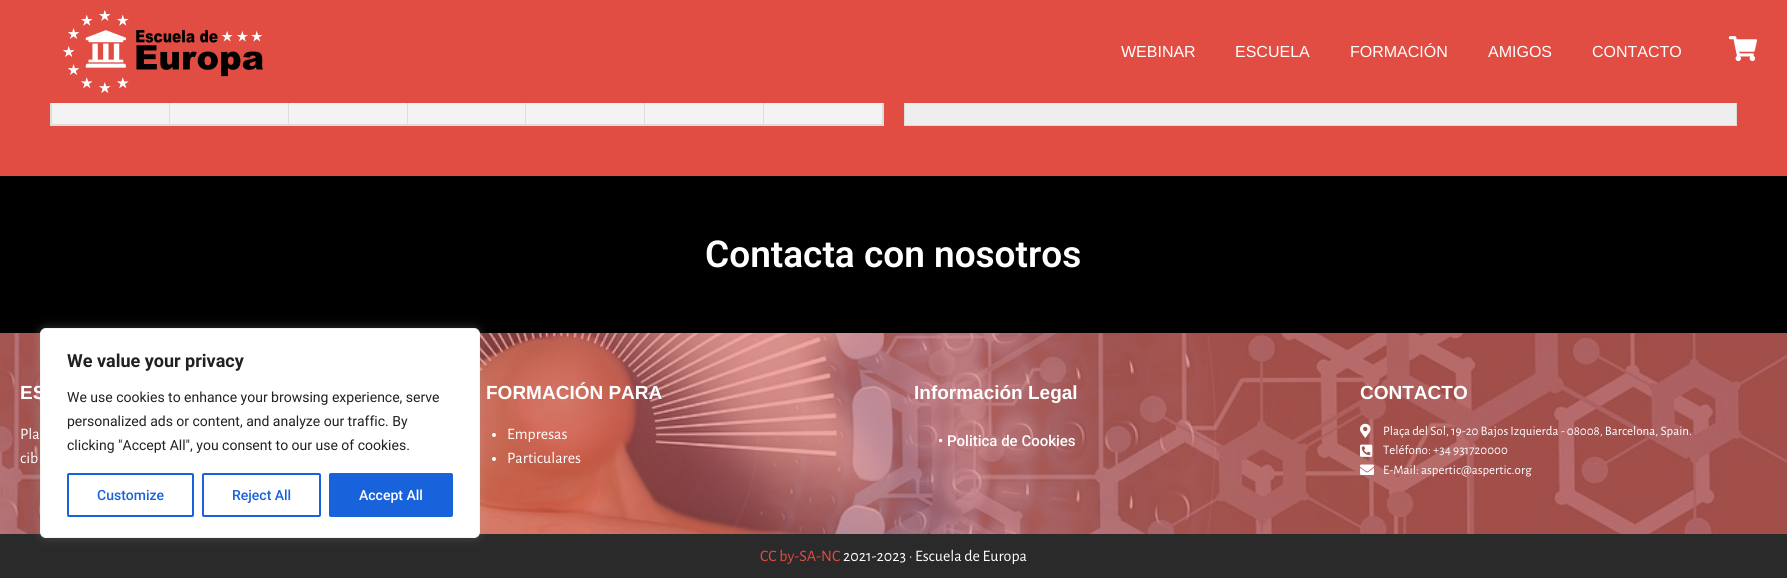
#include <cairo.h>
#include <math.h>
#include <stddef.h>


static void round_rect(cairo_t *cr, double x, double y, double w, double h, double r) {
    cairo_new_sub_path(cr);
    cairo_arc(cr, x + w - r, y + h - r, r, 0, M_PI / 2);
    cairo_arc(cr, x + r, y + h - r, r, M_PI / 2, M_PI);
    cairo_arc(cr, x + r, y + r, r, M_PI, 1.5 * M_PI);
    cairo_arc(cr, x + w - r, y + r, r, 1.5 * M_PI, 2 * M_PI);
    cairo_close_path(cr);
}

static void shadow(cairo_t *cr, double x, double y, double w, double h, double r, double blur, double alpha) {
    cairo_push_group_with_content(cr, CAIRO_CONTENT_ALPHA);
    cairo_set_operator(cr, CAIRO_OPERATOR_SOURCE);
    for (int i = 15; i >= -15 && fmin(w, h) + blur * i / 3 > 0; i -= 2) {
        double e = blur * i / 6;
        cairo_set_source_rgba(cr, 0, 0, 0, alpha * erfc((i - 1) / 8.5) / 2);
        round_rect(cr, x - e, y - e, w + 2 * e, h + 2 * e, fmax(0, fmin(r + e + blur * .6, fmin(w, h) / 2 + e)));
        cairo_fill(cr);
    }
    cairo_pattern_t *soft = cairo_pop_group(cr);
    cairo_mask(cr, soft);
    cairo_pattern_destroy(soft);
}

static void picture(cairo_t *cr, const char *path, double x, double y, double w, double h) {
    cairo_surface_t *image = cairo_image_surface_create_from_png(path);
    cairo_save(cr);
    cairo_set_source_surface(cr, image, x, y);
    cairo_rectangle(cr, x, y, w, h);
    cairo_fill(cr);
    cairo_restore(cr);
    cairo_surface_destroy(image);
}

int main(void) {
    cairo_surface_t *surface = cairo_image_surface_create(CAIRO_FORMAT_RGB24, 1787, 578);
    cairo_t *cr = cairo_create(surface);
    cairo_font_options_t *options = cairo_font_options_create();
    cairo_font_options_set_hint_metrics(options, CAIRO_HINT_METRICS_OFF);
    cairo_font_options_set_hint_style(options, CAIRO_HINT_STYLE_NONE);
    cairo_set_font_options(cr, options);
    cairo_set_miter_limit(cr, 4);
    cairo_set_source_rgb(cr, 0.882, 0.302, 0.263);
    cairo_paint(cr);
    cairo_rectangle(cr, 904.5, -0.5, 832, 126);
    cairo_set_source_rgb(cr, 0.867, 0.867, 0.867);
    cairo_set_line_width(cr, 1);
    cairo_stroke(cr);
    cairo_set_source_rgb(cr, 0.882, 0.302, 0.263);
    cairo_rectangle(cr, 904, 0, 833, 103);
    cairo_fill(cr);
    picture(cr, "img1.png", 63, 10, 200, 83);
    cairo_select_font_face(cr, "Liberation Sans", CAIRO_FONT_SLANT_NORMAL, CAIRO_FONT_WEIGHT_NORMAL);
    cairo_set_font_size(cr, 16);
    cairo_set_source_rgb(cr, 1, 1, 1);
    cairo_move_to(cr, 1121, 57);
    cairo_show_text(cr, "WEBINAR");
    cairo_move_to(cr, 1235, 57);
    cairo_show_text(cr, "ESCUELA");
    cairo_move_to(cr, 1350, 57);
    cairo_show_text(cr, "FORMACIÓN");
    cairo_move_to(cr, 1488, 57);
    cairo_show_text(cr, "AMIGOS");
    cairo_move_to(cr, 1592, 57);
    cairo_show_text(cr, "CONTACTO");
    picture(cr, "img2.png", 1728, 36, 29, 26);
    cairo_set_source_rgb(cr, 0.867, 0.867, 0.867);
    cairo_rectangle(cr, 50, 103, 1, 23);
    cairo_fill(cr);
    cairo_set_source_rgb(cr, 0.953, 0.953, 0.953);
    cairo_rectangle(cr, 52, 103, 830, 21);
    cairo_fill(cr);
    cairo_set_source_rgb(cr, 0.867, 0.867, 0.867);
    cairo_rectangle(cr, 883, 103, 1, 23);
    cairo_fill(cr);
    cairo_rectangle(cr, 51, 125, 833, 1);
    cairo_fill(cr);
    cairo_rectangle(cr, 882, 103, 1, 22);
    cairo_fill(cr);
    cairo_rectangle(cr, 763, 124, 120, 1);
    cairo_fill(cr);
    cairo_rectangle(cr, 763, 103, 1, 22);
    cairo_fill(cr);
    cairo_rectangle(cr, 644, 124, 120, 1);
    cairo_fill(cr);
    cairo_rectangle(cr, 644, 103, 1, 22);
    cairo_fill(cr);
    cairo_rectangle(cr, 525, 124, 120, 1);
    cairo_fill(cr);
    cairo_rectangle(cr, 525, 103, 1, 22);
    cairo_fill(cr);
    cairo_rectangle(cr, 407, 124, 119, 1);
    cairo_fill(cr);
    cairo_rectangle(cr, 407, 103, 1, 22);
    cairo_fill(cr);
    cairo_rectangle(cr, 288, 124, 120, 1);
    cairo_fill(cr);
    cairo_rectangle(cr, 288, 103, 1, 22);
    cairo_fill(cr);
    cairo_rectangle(cr, 169, 124, 120, 1);
    cairo_fill(cr);
    cairo_rectangle(cr, 169, 103, 1, 22);
    cairo_fill(cr);
    cairo_rectangle(cr, 51, 124, 119, 1);
    cairo_fill(cr);
    cairo_rectangle(cr, 51, 103, 1, 22);
    cairo_fill(cr);
    cairo_set_source_rgb(cr, 0.933, 0.933, 0.933);
    cairo_rectangle(cr, 905, 103, 831, 22);
    cairo_fill(cr);
    cairo_set_source_rgb(cr, 0, 0, 0);
    cairo_rectangle(cr, 0, 176, 1787, 157);
    cairo_fill(cr);
    cairo_select_font_face(cr, "Roboto SemiBold", CAIRO_FONT_SLANT_NORMAL, CAIRO_FONT_WEIGHT_NORMAL);
    cairo_set_font_size(cr, 37);
    cairo_set_source_rgb(cr, 1, 1, 1);
    cairo_move_to(cr, 705, 267);
    cairo_show_text(cr, "Contacta con nosotros");
    picture(cr, "img3.png", 0, 333, 1787, 201);
    cairo_arc(cr, 494, 435, 2, 0, 2 * M_PI);
    cairo_fill(cr);
    cairo_arc(cr, 494, 459, 2, 0, 2 * M_PI);
    cairo_fill(cr);
    cairo_set_source_rgb(cr, 0.165, 0.165, 0.165);
    cairo_rectangle(cr, 0, 534, 1787, 44);
    cairo_fill(cr);
    cairo_set_source_rgb(cr, 0.675, 0.671, 0.671);
    shadow(cr, 40, 327, 440, 210, 6, 5, 0.3);
    cairo_set_source_rgb(cr, 1, 1, 1);
    round_rect(cr, 40.5, 328.5, 439, 209, 5.5);
    cairo_fill_preserve(cr);
    cairo_set_source_rgb(cr, 0.957, 0.957, 0.957);
    cairo_stroke(cr);
    cairo_select_font_face(cr, "Roboto", CAIRO_FONT_SLANT_NORMAL, CAIRO_FONT_WEIGHT_BOLD);
    cairo_set_font_size(cr, 18);
    cairo_set_source_rgb(cr, 0.129, 0.129, 0.129);
    cairo_move_to(cr, 67, 367);
    cairo_show_text(cr, "We value your privacy");
    cairo_select_font_face(cr, "Roboto", CAIRO_FONT_SLANT_NORMAL, CAIRO_FONT_WEIGHT_NORMAL);
    cairo_set_font_size(cr, 14);
    cairo_move_to(cr, 67, 402);
    cairo_show_text(cr, "We use cookies to enhance your browsing experience, serve");
    cairo_move_to(cr, 67, 426);
    cairo_show_text(cr, "personalized ads or content, and analyze our traffic. By");
    cairo_move_to(cr, 67, 450);
    cairo_show_text(cr, "clicking \"Accept All\", you consent to our use of cookies.");
    round_rect(cr, 68, 474, 125, 42, 1);
    cairo_set_source_rgb(cr, 0.094, 0.388, 0.863);
    cairo_set_line_width(cr, 2);
    cairo_stroke(cr);
    cairo_select_font_face(cr, "Roboto Medium", CAIRO_FONT_SLANT_NORMAL, CAIRO_FONT_WEIGHT_NORMAL);
    cairo_move_to(cr, 97, 500);
    cairo_show_text(cr, "Customize");
    round_rect(cr, 203, 474, 117, 42, 1);
    cairo_stroke(cr);
    cairo_move_to(cr, 232, 500);
    cairo_show_text(cr, "Reject All");
    round_rect(cr, 330, 474, 122, 42, 1);
    cairo_fill_preserve(cr);
    cairo_stroke(cr);
    cairo_set_source_rgb(cr, 1, 1, 1);
    cairo_move_to(cr, 359, 500);
    cairo_show_text(cr, "Accept All");
    cairo_select_font_face(cr, "Liberation Sans", CAIRO_FONT_SLANT_NORMAL, CAIRO_FONT_WEIGHT_BOLD);
    cairo_set_font_size(cr, 19);
    cairo_move_to(cr, 20, 399);
    cairo_show_text(cr, "ES");
    cairo_select_font_face(cr, "Alegreya Sans", CAIRO_FONT_SLANT_NORMAL, CAIRO_FONT_WEIGHT_NORMAL);
    cairo_set_font_size(cr, 16);
    cairo_move_to(cr, 20, 439);
    cairo_show_text(cr, "Pla");
    cairo_move_to(cr, 20, 463);
    cairo_show_text(cr, "cib");
    cairo_select_font_face(cr, "Liberation Sans", CAIRO_FONT_SLANT_NORMAL, CAIRO_FONT_WEIGHT_BOLD);
    cairo_set_font_size(cr, 19);
    cairo_move_to(cr, 486, 399);
    cairo_show_text(cr, "FORMACIÓN PARA");
    cairo_select_font_face(cr, "Alegreya Sans", CAIRO_FONT_SLANT_NORMAL, CAIRO_FONT_WEIGHT_NORMAL);
    cairo_set_font_size(cr, 16);
    cairo_move_to(cr, 507, 439);
    cairo_show_text(cr, "Empresas");
    cairo_move_to(cr, 507, 463);
    cairo_show_text(cr, "Particulares");
    cairo_select_font_face(cr, "Liberation Sans", CAIRO_FONT_SLANT_NORMAL, CAIRO_FONT_WEIGHT_BOLD);
    cairo_set_font_size(cr, 19);
    cairo_move_to(cr, 914, 399);
    cairo_show_text(cr, "Información Legal");
    cairo_select_font_face(cr, "Roboto Medium", CAIRO_FONT_SLANT_NORMAL, CAIRO_FONT_WEIGHT_NORMAL);
    cairo_set_font_size(cr, 15);
    cairo_move_to(cr, 938, 446);
    cairo_show_text(cr, "• Politica de Cookies");
    cairo_select_font_face(cr, "Liberation Sans", CAIRO_FONT_SLANT_NORMAL, CAIRO_FONT_WEIGHT_BOLD);
    cairo_set_font_size(cr, 19);
    cairo_move_to(cr, 1360, 399);
    cairo_show_text(cr, "CONTACTO");
    picture(cr, "img4.png", 1360, 423, 11, 15);
    cairo_select_font_face(cr, "Alegreya Sans", CAIRO_FONT_SLANT_NORMAL, CAIRO_FONT_WEIGHT_NORMAL);
    cairo_set_font_size(cr, 13);
    cairo_move_to(cr, 1383, 435);
    cairo_show_text(cr, "Plaça del Sol, 19-20 Bajos Izquierda - 08008, Barcelona, Spain.");
    picture(cr, "img5.png", 1360, 444, 13, 13);
    cairo_move_to(cr, 1383, 454);
    cairo_show_text(cr, "Teléfono: +34 931720000");
    picture(cr, "img6.png", 1360, 464, 14, 11);
    cairo_move_to(cr, 1383, 474);
    cairo_show_text(cr, "E-Mail: aspertic@aspertic.org");
    cairo_set_font_size(cr, 16);
    cairo_set_source_rgb(cr, 0.882, 0.302, 0.263);
    cairo_move_to(cr, 760, 561);
    cairo_show_text(cr, "CC by-SA-NC");
    cairo_set_source_rgb(cr, 1, 1, 1);
    cairo_move_to(cr, 843, 561);
    cairo_show_text(cr, "2021-2023 · Escuela de Europa");
    cairo_surface_write_to_png(surface, "page.png");
    cairo_font_options_destroy(options);
    cairo_destroy(cr);
    cairo_surface_destroy(surface);
    return 0;
}
